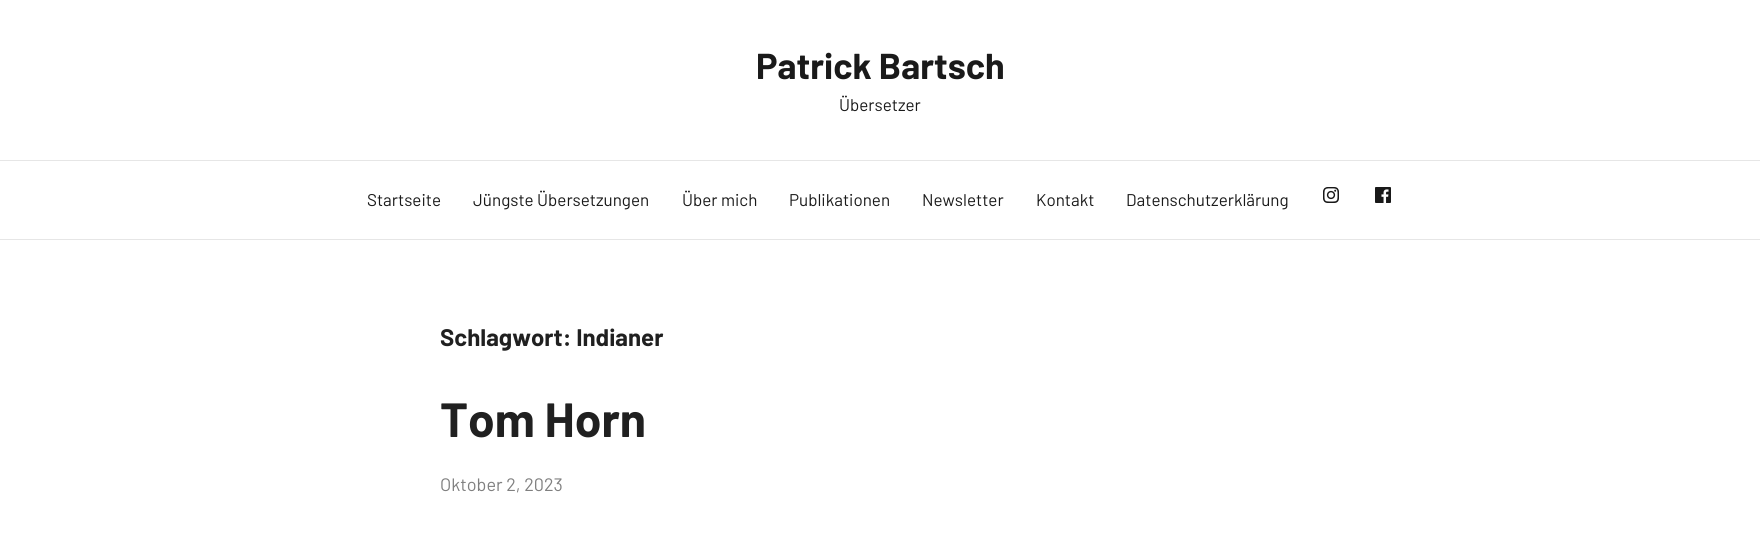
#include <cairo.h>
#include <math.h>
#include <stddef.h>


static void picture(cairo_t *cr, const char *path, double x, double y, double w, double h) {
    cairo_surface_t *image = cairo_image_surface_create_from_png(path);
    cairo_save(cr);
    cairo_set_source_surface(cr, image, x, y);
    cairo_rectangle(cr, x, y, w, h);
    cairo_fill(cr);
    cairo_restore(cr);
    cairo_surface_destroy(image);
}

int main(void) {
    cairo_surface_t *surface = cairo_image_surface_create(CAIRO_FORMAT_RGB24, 1760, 549);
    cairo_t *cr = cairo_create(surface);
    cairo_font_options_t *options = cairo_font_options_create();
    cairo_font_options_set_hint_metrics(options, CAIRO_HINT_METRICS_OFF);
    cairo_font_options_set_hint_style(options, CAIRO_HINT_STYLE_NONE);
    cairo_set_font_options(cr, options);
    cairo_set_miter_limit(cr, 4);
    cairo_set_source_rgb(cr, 1, 1, 1);
    cairo_paint(cr);
    cairo_set_source_rgb(cr, 0.902, 0.902, 0.902);
    cairo_rectangle(cr, 0, 239, 1760, 1);
    cairo_fill(cr);
    cairo_select_font_face(cr, "Barlow", CAIRO_FONT_SLANT_NORMAL, CAIRO_FONT_WEIGHT_BOLD);
    cairo_set_font_size(cr, 36);
    cairo_set_source_rgb(cr, 0.102, 0.102, 0.102);
    cairo_move_to(cr, 756, 79);
    cairo_show_text(cr, "Patrick Bartsch");
    cairo_select_font_face(cr, "Barlow", CAIRO_FONT_SLANT_NORMAL, CAIRO_FONT_WEIGHT_NORMAL);
    cairo_set_font_size(cr, 17);
    cairo_move_to(cr, 839, 111);
    cairo_show_text(cr, "Übersetzer");
    cairo_set_source_rgb(cr, 0.902, 0.902, 0.902);
    cairo_rectangle(cr, 0, 160, 1760, 1);
    cairo_fill(cr);
    cairo_set_source_rgb(cr, 0.102, 0.102, 0.102);
    cairo_move_to(cr, 367, 206);
    cairo_show_text(cr, "Startseite");
    cairo_move_to(cr, 473, 206);
    cairo_show_text(cr, "Jüngste Übersetzungen");
    cairo_move_to(cr, 682, 206);
    cairo_show_text(cr, "Über mich");
    cairo_move_to(cr, 789, 206);
    cairo_show_text(cr, "Publikationen");
    cairo_move_to(cr, 922, 206);
    cairo_show_text(cr, "Newsletter");
    cairo_move_to(cr, 1036, 206);
    cairo_show_text(cr, "Kontakt");
    cairo_move_to(cr, 1126, 206);
    cairo_show_text(cr, "Datenschutzerklärung");
    picture(cr, "img1.png", 1323, 187, 16, 16);
    picture(cr, "img2.png", 1375, 187, 16, 16);
    cairo_select_font_face(cr, "Barlow", CAIRO_FONT_SLANT_NORMAL, CAIRO_FONT_WEIGHT_BOLD);
    cairo_set_font_size(cr, 24);
    cairo_set_source_rgb(cr, 0.125, 0.125, 0.125);
    cairo_move_to(cr, 440, 346);
    cairo_show_text(cr, "Schlagwort: Indianer");
    cairo_set_font_size(cr, 48);
    cairo_move_to(cr, 440, 437);
    cairo_show_text(cr, "Tom Horn");
    cairo_select_font_face(cr, "Barlow", CAIRO_FONT_SLANT_NORMAL, CAIRO_FONT_WEIGHT_NORMAL);
    cairo_set_font_size(cr, 18);
    cairo_set_source_rgb(cr, 0.502, 0.502, 0.502);
    cairo_move_to(cr, 440, 491);
    cairo_show_text(cr, "Oktober 2, 2023");
    cairo_surface_write_to_png(surface, "page.png");
    cairo_font_options_destroy(options);
    cairo_destroy(cr);
    cairo_surface_destroy(surface);
    return 0;
}
